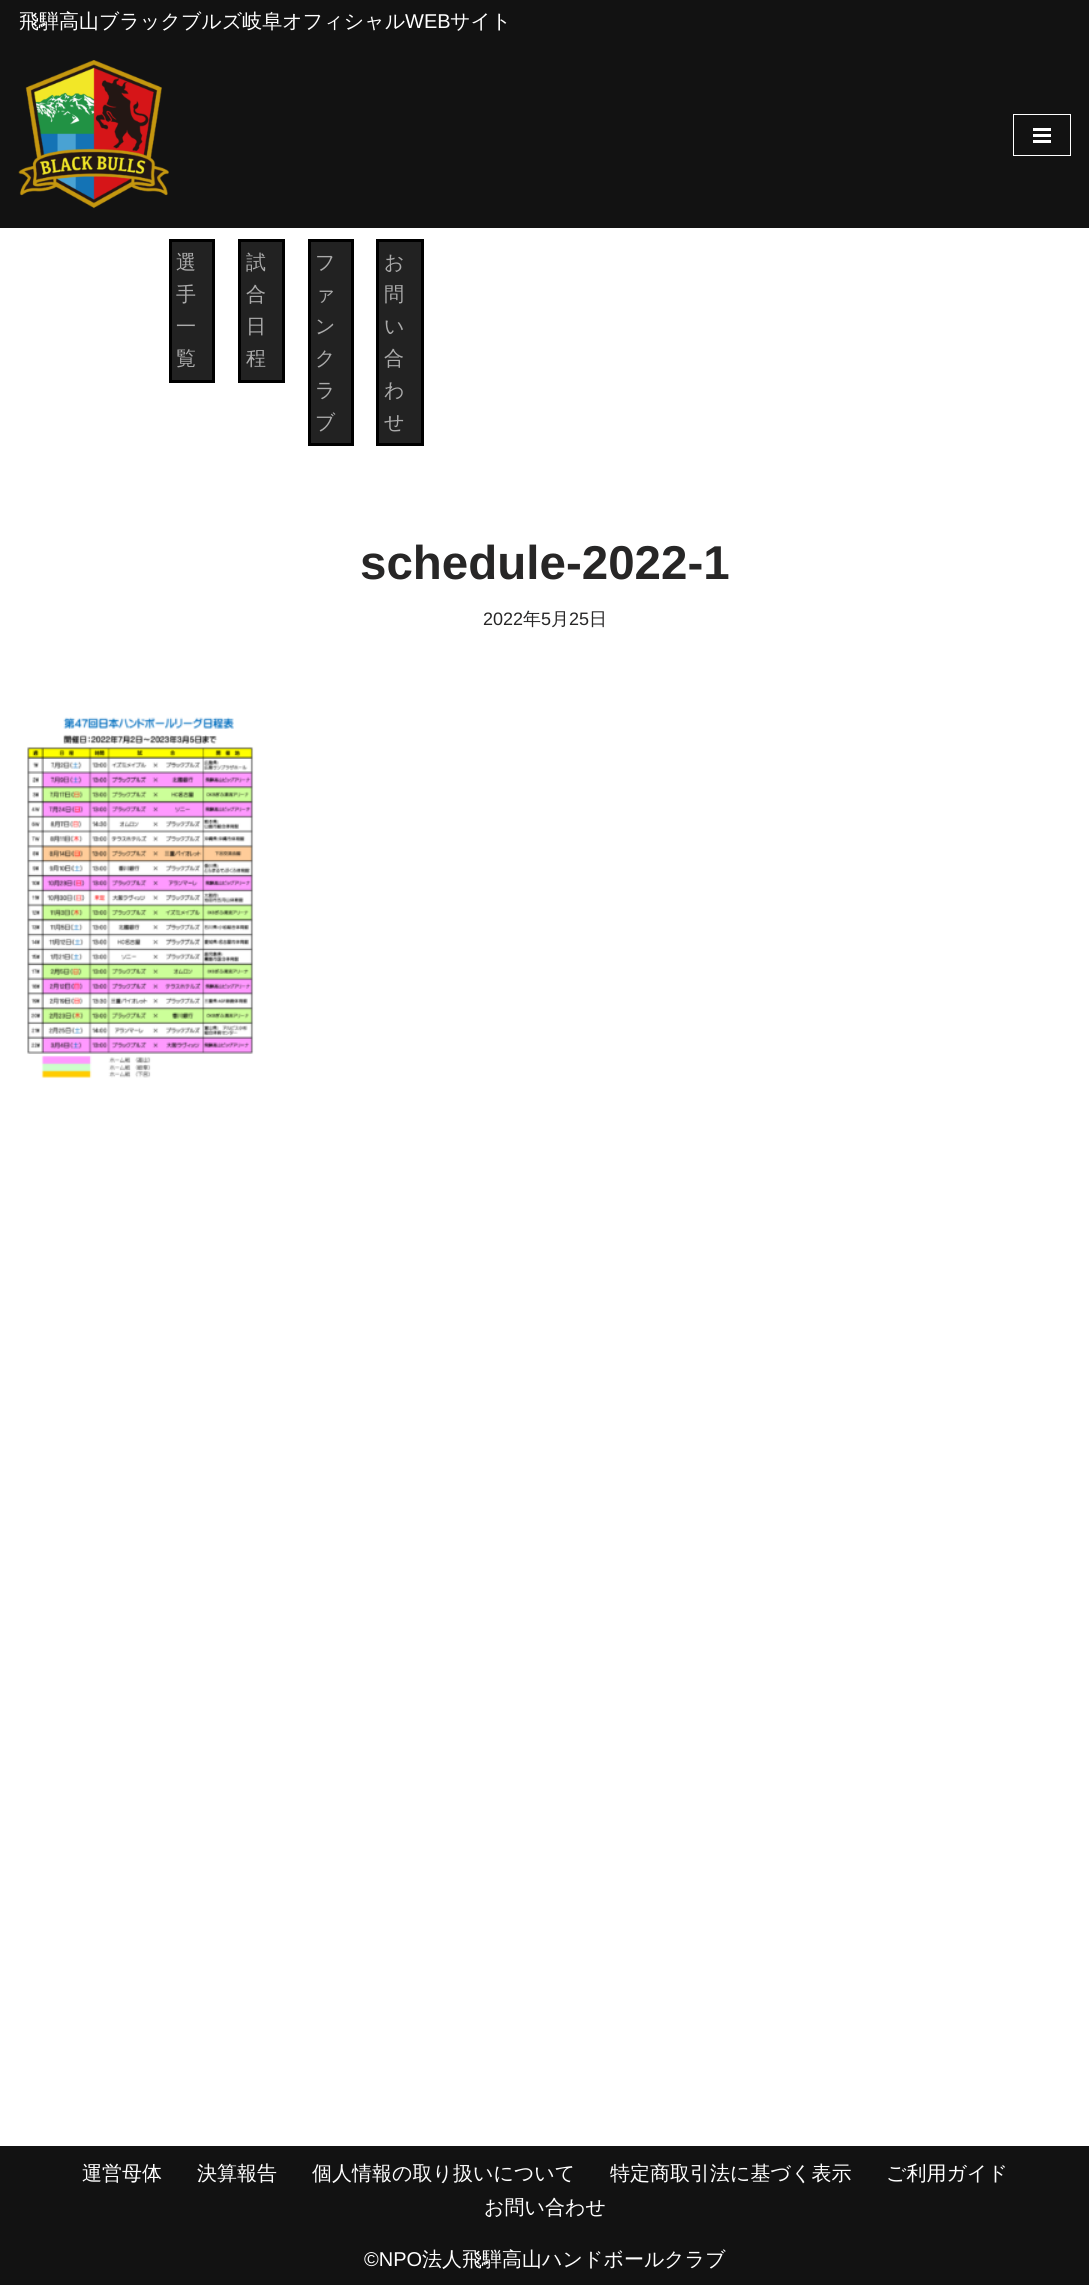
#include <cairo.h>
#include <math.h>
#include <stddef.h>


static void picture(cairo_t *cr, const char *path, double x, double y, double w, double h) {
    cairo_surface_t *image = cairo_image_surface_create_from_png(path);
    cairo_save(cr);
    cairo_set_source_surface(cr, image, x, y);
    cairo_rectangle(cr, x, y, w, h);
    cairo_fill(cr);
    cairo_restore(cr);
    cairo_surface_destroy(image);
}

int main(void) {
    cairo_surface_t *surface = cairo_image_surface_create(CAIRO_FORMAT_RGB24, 1089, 2285);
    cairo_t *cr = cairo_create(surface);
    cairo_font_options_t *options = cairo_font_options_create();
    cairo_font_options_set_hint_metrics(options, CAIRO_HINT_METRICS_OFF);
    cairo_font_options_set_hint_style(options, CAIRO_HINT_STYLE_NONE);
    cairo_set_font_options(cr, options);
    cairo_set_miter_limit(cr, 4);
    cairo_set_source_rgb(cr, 1, 1, 1);
    cairo_paint(cr);
    cairo_set_source_rgb(cr, 0.071, 0.071, 0.071);
    cairo_rectangle(cr, 0, 0, 1089, 228);
    cairo_fill(cr);
    cairo_select_font_face(cr, "WenQuanYi Zen Hei Medium", CAIRO_FONT_SLANT_NORMAL, CAIRO_FONT_WEIGHT_NORMAL);
    cairo_set_font_size(cr, 20);
    cairo_set_source_rgb(cr, 1, 1, 1);
    cairo_move_to(cr, 19, 28);
    cairo_show_text(cr, "飛騨高山ブラックブルズ岐阜オフィシャル");
    cairo_select_font_face(cr, "Liberation Sans", CAIRO_FONT_SLANT_NORMAL, CAIRO_FONT_WEIGHT_NORMAL);
    cairo_move_to(cr, 405, 28);
    cairo_show_text(cr, "WEB");
    cairo_select_font_face(cr, "WenQuanYi Zen Hei Medium", CAIRO_FONT_SLANT_NORMAL, CAIRO_FONT_WEIGHT_NORMAL);
    cairo_move_to(cr, 450, 28);
    cairo_show_text(cr, "サイト");
    picture(cr, "img1.png", 18, 60, 151, 149);
    cairo_rectangle(cr, 1013.5, 114.5, 57, 41);
    cairo_set_line_width(cr, 1);
    cairo_stroke(cr);
    cairo_rectangle(cr, 1033, 128, 18, 3);
    cairo_fill(cr);
    cairo_rectangle(cr, 1033, 134, 18, 3);
    cairo_fill(cr);
    cairo_rectangle(cr, 1033, 140, 18, 3);
    cairo_fill(cr);
    cairo_set_source_rgb(cr, 0.133, 0.133, 0.133);
    cairo_rectangle(cr, 170.5, 240.5, 43, 141);
    cairo_fill_preserve(cr);
    cairo_set_source_rgb(cr, 0, 0, 0);
    cairo_set_line_width(cr, 3);
    cairo_stroke(cr);
    cairo_set_source_rgb(cr, 0.667, 0.667, 0.667);
    cairo_move_to(cr, 176, 269);
    cairo_show_text(cr, "選");
    cairo_move_to(cr, 176, 301);
    cairo_show_text(cr, "手");
    cairo_move_to(cr, 176, 333);
    cairo_show_text(cr, "一");
    cairo_move_to(cr, 176, 365);
    cairo_show_text(cr, "覧");
    cairo_set_source_rgb(cr, 0.133, 0.133, 0.133);
    cairo_rectangle(cr, 239.5, 240.5, 44, 141);
    cairo_fill_preserve(cr);
    cairo_set_source_rgb(cr, 0, 0, 0);
    cairo_stroke(cr);
    cairo_set_source_rgb(cr, 0.667, 0.667, 0.667);
    cairo_move_to(cr, 246, 269);
    cairo_show_text(cr, "試");
    cairo_move_to(cr, 246, 301);
    cairo_show_text(cr, "合");
    cairo_move_to(cr, 246, 333);
    cairo_show_text(cr, "日");
    cairo_move_to(cr, 246, 365);
    cairo_show_text(cr, "程");
    cairo_set_source_rgb(cr, 0.133, 0.133, 0.133);
    cairo_rectangle(cr, 309.5, 240.5, 43, 204);
    cairo_fill_preserve(cr);
    cairo_set_source_rgb(cr, 0, 0, 0);
    cairo_stroke(cr);
    cairo_set_source_rgb(cr, 0.667, 0.667, 0.667);
    cairo_move_to(cr, 315, 269);
    cairo_show_text(cr, "フ");
    cairo_move_to(cr, 315, 301);
    cairo_show_text(cr, "ァ");
    cairo_move_to(cr, 315, 333);
    cairo_show_text(cr, "ン");
    cairo_move_to(cr, 315, 365);
    cairo_show_text(cr, "ク");
    cairo_move_to(cr, 315, 397);
    cairo_show_text(cr, "ラ");
    cairo_move_to(cr, 315, 429);
    cairo_show_text(cr, "ブ");
    cairo_set_source_rgb(cr, 0.133, 0.133, 0.133);
    cairo_rectangle(cr, 377.5, 240.5, 45, 204);
    cairo_fill_preserve(cr);
    cairo_set_source_rgb(cr, 0, 0, 0);
    cairo_stroke(cr);
    cairo_set_source_rgb(cr, 0.667, 0.667, 0.667);
    cairo_move_to(cr, 384, 269);
    cairo_show_text(cr, "お");
    cairo_move_to(cr, 384, 301);
    cairo_show_text(cr, "問");
    cairo_move_to(cr, 384, 333);
    cairo_show_text(cr, "い");
    cairo_move_to(cr, 384, 365);
    cairo_show_text(cr, "合");
    cairo_move_to(cr, 384, 397);
    cairo_show_text(cr, "わ");
    cairo_move_to(cr, 384, 429);
    cairo_show_text(cr, "せ");
    cairo_select_font_face(cr, "Liberation Sans", CAIRO_FONT_SLANT_NORMAL, CAIRO_FONT_WEIGHT_BOLD);
    cairo_set_font_size(cr, 47.5);
    cairo_set_source_rgb(cr, 0.153, 0.149, 0.149);
    cairo_move_to(cr, 360, 579);
    cairo_show_text(cr, "schedule-2022-1");
    cairo_select_font_face(cr, "Liberation Sans", CAIRO_FONT_SLANT_NORMAL, CAIRO_FONT_WEIGHT_NORMAL);
    cairo_set_font_size(cr, 18);
    cairo_move_to(cr, 483, 625);
    cairo_show_text(cr, "2022");
    cairo_select_font_face(cr, "WenQuanYi Zen Hei Medium", CAIRO_FONT_SLANT_NORMAL, CAIRO_FONT_WEIGHT_NORMAL);
    cairo_move_to(cr, 523, 625);
    cairo_show_text(cr, "年");
    cairo_select_font_face(cr, "Liberation Sans", CAIRO_FONT_SLANT_NORMAL, CAIRO_FONT_WEIGHT_NORMAL);
    cairo_move_to(cr, 541, 625);
    cairo_show_text(cr, "5");
    cairo_select_font_face(cr, "WenQuanYi Zen Hei Medium", CAIRO_FONT_SLANT_NORMAL, CAIRO_FONT_WEIGHT_NORMAL);
    cairo_move_to(cr, 551, 625);
    cairo_show_text(cr, "月");
    cairo_select_font_face(cr, "Liberation Sans", CAIRO_FONT_SLANT_NORMAL, CAIRO_FONT_WEIGHT_NORMAL);
    cairo_move_to(cr, 569, 625);
    cairo_show_text(cr, "25");
    cairo_select_font_face(cr, "WenQuanYi Zen Hei Medium", CAIRO_FONT_SLANT_NORMAL, CAIRO_FONT_WEIGHT_NORMAL);
    cairo_move_to(cr, 589, 625);
    cairo_show_text(cr, "日");
    picture(cr, "img2.png", 27, 717, 227, 362);
    cairo_set_source_rgb(cr, 0.071, 0.071, 0.071);
    cairo_rectangle(cr, 0, 2146, 1089, 139);
    cairo_fill(cr);
    cairo_set_font_size(cr, 20);
    cairo_set_source_rgb(cr, 1, 1, 1);
    cairo_move_to(cr, 82, 2180);
    cairo_show_text(cr, "運営母体");
    cairo_move_to(cr, 197, 2180);
    cairo_show_text(cr, "決算報告");
    cairo_move_to(cr, 312, 2180);
    cairo_show_text(cr, "個人情報の取り扱いについて");
    cairo_move_to(cr, 610, 2180);
    cairo_show_text(cr, "特定商取引法に基づく表示");
    cairo_move_to(cr, 886, 2180);
    cairo_show_text(cr, "ご利用ガイド");
    cairo_move_to(cr, 484, 2214);
    cairo_show_text(cr, "お問い合わせ");
    cairo_select_font_face(cr, "Liberation Sans", CAIRO_FONT_SLANT_NORMAL, CAIRO_FONT_WEIGHT_NORMAL);
    cairo_move_to(cr, 364, 2266);
    cairo_show_text(cr, "©NPO");
    cairo_select_font_face(cr, "WenQuanYi Zen Hei Medium", CAIRO_FONT_SLANT_NORMAL, CAIRO_FONT_WEIGHT_NORMAL);
    cairo_move_to(cr, 422, 2266);
    cairo_show_text(cr, "法人飛騨高山ハンドボールクラブ");
    cairo_surface_write_to_png(surface, "page.png");
    cairo_font_options_destroy(options);
    cairo_destroy(cr);
    cairo_surface_destroy(surface);
    return 0;
}
